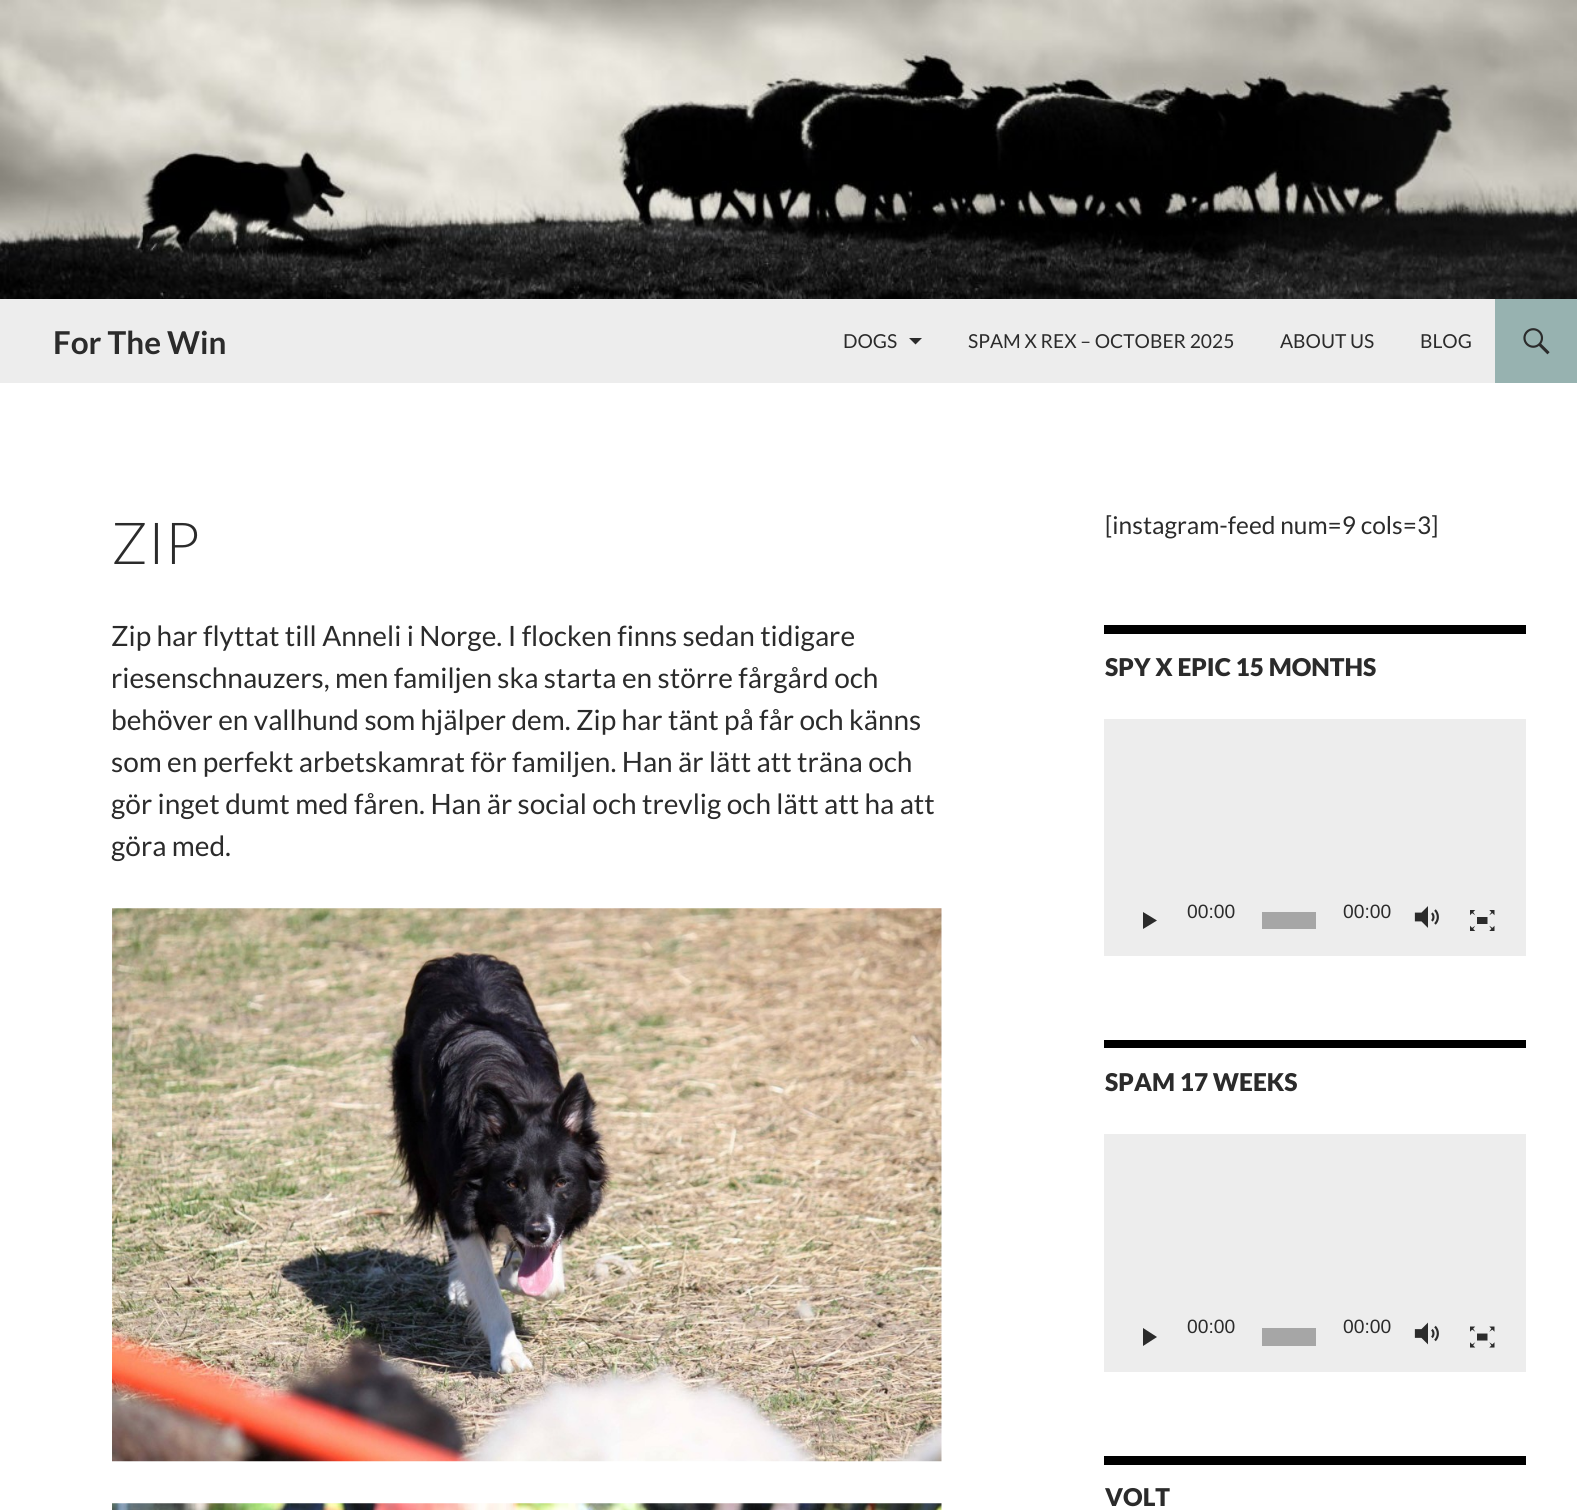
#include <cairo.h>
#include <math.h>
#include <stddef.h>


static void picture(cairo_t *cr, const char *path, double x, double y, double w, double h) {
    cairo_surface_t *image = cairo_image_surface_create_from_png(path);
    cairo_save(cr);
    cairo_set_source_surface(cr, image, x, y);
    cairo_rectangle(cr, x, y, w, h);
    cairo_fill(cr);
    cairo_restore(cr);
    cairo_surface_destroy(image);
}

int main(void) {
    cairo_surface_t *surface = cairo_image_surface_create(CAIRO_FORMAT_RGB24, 1577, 1510);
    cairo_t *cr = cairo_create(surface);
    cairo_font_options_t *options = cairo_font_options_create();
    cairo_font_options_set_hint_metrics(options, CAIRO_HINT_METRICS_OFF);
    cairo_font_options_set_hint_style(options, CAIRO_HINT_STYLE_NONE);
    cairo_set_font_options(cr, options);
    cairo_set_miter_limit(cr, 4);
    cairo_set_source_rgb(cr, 1, 1, 1);
    cairo_paint(cr);
    picture(cr, "img1.png", 0, 0, 1577, 299);
    cairo_set_source_rgb(cr, 0.929, 0.929, 0.929);
    cairo_rectangle(cr, 0, 299, 1495, 84);
    cairo_fill(cr);
    cairo_select_font_face(cr, "Lato", CAIRO_FONT_SLANT_NORMAL, CAIRO_FONT_WEIGHT_BOLD);
    cairo_set_font_size(cr, 31.5);
    cairo_set_source_rgb(cr, 0.169, 0.169, 0.169);
    cairo_move_to(cr, 53, 354);
    cairo_show_text(cr, "For The Win");
    cairo_select_font_face(cr, "Lato", CAIRO_FONT_SLANT_NORMAL, CAIRO_FONT_WEIGHT_NORMAL);
    cairo_set_font_size(cr, 19.25);
    cairo_move_to(cr, 843, 348);
    cairo_show_text(cr, "DOGS");
    cairo_new_path(cr);
    cairo_move_to(cr, 909, 338);
    cairo_line_to(cr, 915.5, 344.5);
    cairo_line_to(cr, 922, 338);
    cairo_close_path(cr);
    cairo_fill(cr);
    cairo_move_to(cr, 968, 348);
    cairo_show_text(cr, "SPAM X REX – OCTOBER 2025");
    cairo_move_to(cr, 1280, 348);
    cairo_show_text(cr, "ABOUT US");
    cairo_move_to(cr, 1420, 348);
    cairo_show_text(cr, "BLOG");
    cairo_set_source_rgb(cr, 0.592, 0.698, 0.69);
    cairo_rectangle(cr, 1495, 299, 82, 84);
    cairo_fill(cr);
    picture(cr, "img2.png", 1523, 328, 27, 27);
    cairo_select_font_face(cr, "Lato Light", CAIRO_FONT_SLANT_NORMAL, CAIRO_FONT_WEIGHT_NORMAL);
    cairo_set_font_size(cr, 58);
    cairo_set_source_rgb(cr, 0.169, 0.169, 0.169);
    cairo_move_to(cr, 111, 564);
    cairo_show_text(cr, "ZIP");
    cairo_select_font_face(cr, "Lato", CAIRO_FONT_SLANT_NORMAL, CAIRO_FONT_WEIGHT_NORMAL);
    cairo_set_font_size(cr, 28);
    cairo_move_to(cr, 111, 646);
    cairo_show_text(cr, "Zip har flyttat till Anneli i Norge. I flocken finns sedan tidigare");
    cairo_move_to(cr, 111, 688);
    cairo_show_text(cr, "riesenschnauzers, men familjen ska starta en större fårgård och");
    cairo_move_to(cr, 111, 730);
    cairo_show_text(cr, "behöver en vallhund som hjälper dem. Zip har tänt på får och känns");
    cairo_move_to(cr, 111, 772);
    cairo_show_text(cr, "som en perfekt arbetskamrat för familjen. Han är lätt att träna och");
    cairo_move_to(cr, 111, 814);
    cairo_show_text(cr, "gör inget dumt med fåren. Han är social och trevlig och lätt att ha att");
    cairo_move_to(cr, 111, 856);
    cairo_show_text(cr, "göra med.");
    picture(cr, "img3.png", 112, 908, 830, 554);
    picture(cr, "img4.png", 112, 1503, 830, 7);
    cairo_set_font_size(cr, 24.5);
    cairo_move_to(cr, 1105, 534);
    cairo_show_text(cr, "[instagram-feed num=9 cols=3]");
    cairo_set_source_rgb(cr, 0, 0, 0);
    cairo_rectangle(cr, 1104, 625, 422, 9);
    cairo_fill(cr);
    cairo_select_font_face(cr, "Lato Black", CAIRO_FONT_SLANT_NORMAL, CAIRO_FONT_WEIGHT_NORMAL);
    cairo_set_source_rgb(cr, 0.169, 0.169, 0.169);
    cairo_move_to(cr, 1105, 676);
    cairo_show_text(cr, "SPY X EPIC 15 MONTHS");
    cairo_set_source_rgb(cr, 0.929, 0.929, 0.929);
    cairo_rectangle(cr, 1104, 719, 422, 237);
    cairo_fill(cr);
    cairo_set_source_rgb(cr, 0.169, 0.169, 0.169);
    cairo_new_path(cr);
    cairo_move_to(cr, 1143, 929);
    cairo_line_to(cr, 1143, 912);
    cairo_line_to(cr, 1157, 920.5);
    cairo_close_path(cr);
    cairo_fill(cr);
    cairo_select_font_face(cr, "Liberation Sans", CAIRO_FONT_SLANT_NORMAL, CAIRO_FONT_WEIGHT_NORMAL);
    cairo_set_font_size(cr, 19.25);
    cairo_move_to(cr, 1187, 918);
    cairo_show_text(cr, "00:00");
    cairo_set_source_rgb(cr, 0.651, 0.651, 0.651);
    cairo_rectangle(cr, 1262, 912, 54, 17);
    cairo_fill(cr);
    cairo_set_source_rgb(cr, 0.169, 0.169, 0.169);
    cairo_move_to(cr, 1343, 918);
    cairo_show_text(cr, "00:00");
    picture(cr, "img5.png", 1414, 906, 25, 22);
    picture(cr, "img6.png", 1470, 910, 25, 21);
    cairo_set_source_rgb(cr, 0, 0, 0);
    cairo_rectangle(cr, 1104, 1040, 422, 8);
    cairo_fill(cr);
    cairo_select_font_face(cr, "Lato Black", CAIRO_FONT_SLANT_NORMAL, CAIRO_FONT_WEIGHT_NORMAL);
    cairo_set_font_size(cr, 24.5);
    cairo_set_source_rgb(cr, 0.169, 0.169, 0.169);
    cairo_move_to(cr, 1105, 1091);
    cairo_show_text(cr, "SPAM 17 WEEKS");
    cairo_set_source_rgb(cr, 0.929, 0.929, 0.929);
    cairo_rectangle(cr, 1104, 1134, 422, 238);
    cairo_fill(cr);
    cairo_set_source_rgb(cr, 0.169, 0.169, 0.169);
    cairo_new_path(cr);
    cairo_move_to(cr, 1143, 1346);
    cairo_line_to(cr, 1143, 1328);
    cairo_line_to(cr, 1157, 1337);
    cairo_close_path(cr);
    cairo_fill(cr);
    cairo_select_font_face(cr, "Liberation Sans", CAIRO_FONT_SLANT_NORMAL, CAIRO_FONT_WEIGHT_NORMAL);
    cairo_set_font_size(cr, 19.25);
    cairo_move_to(cr, 1187, 1333);
    cairo_show_text(cr, "00:00");
    cairo_set_source_rgb(cr, 0.651, 0.651, 0.651);
    cairo_rectangle(cr, 1262, 1328, 54, 18);
    cairo_fill(cr);
    cairo_set_source_rgb(cr, 0.169, 0.169, 0.169);
    cairo_move_to(cr, 1343, 1333);
    cairo_show_text(cr, "00:00");
    picture(cr, "img7.png", 1414, 1322, 25, 23);
    picture(cr, "img8.png", 1470, 1326, 25, 22);
    cairo_set_source_rgb(cr, 0, 0, 0);
    cairo_rectangle(cr, 1104, 1456, 422, 9);
    cairo_fill(cr);
    cairo_select_font_face(cr, "Lato Black", CAIRO_FONT_SLANT_NORMAL, CAIRO_FONT_WEIGHT_NORMAL);
    cairo_set_font_size(cr, 24.5);
    cairo_set_source_rgb(cr, 0.169, 0.169, 0.169);
    cairo_move_to(cr, 1105, 1506);
    cairo_show_text(cr, "VOLT");
    cairo_surface_write_to_png(surface, "page.png");
    cairo_font_options_destroy(options);
    cairo_destroy(cr);
    cairo_surface_destroy(surface);
    return 0;
}
